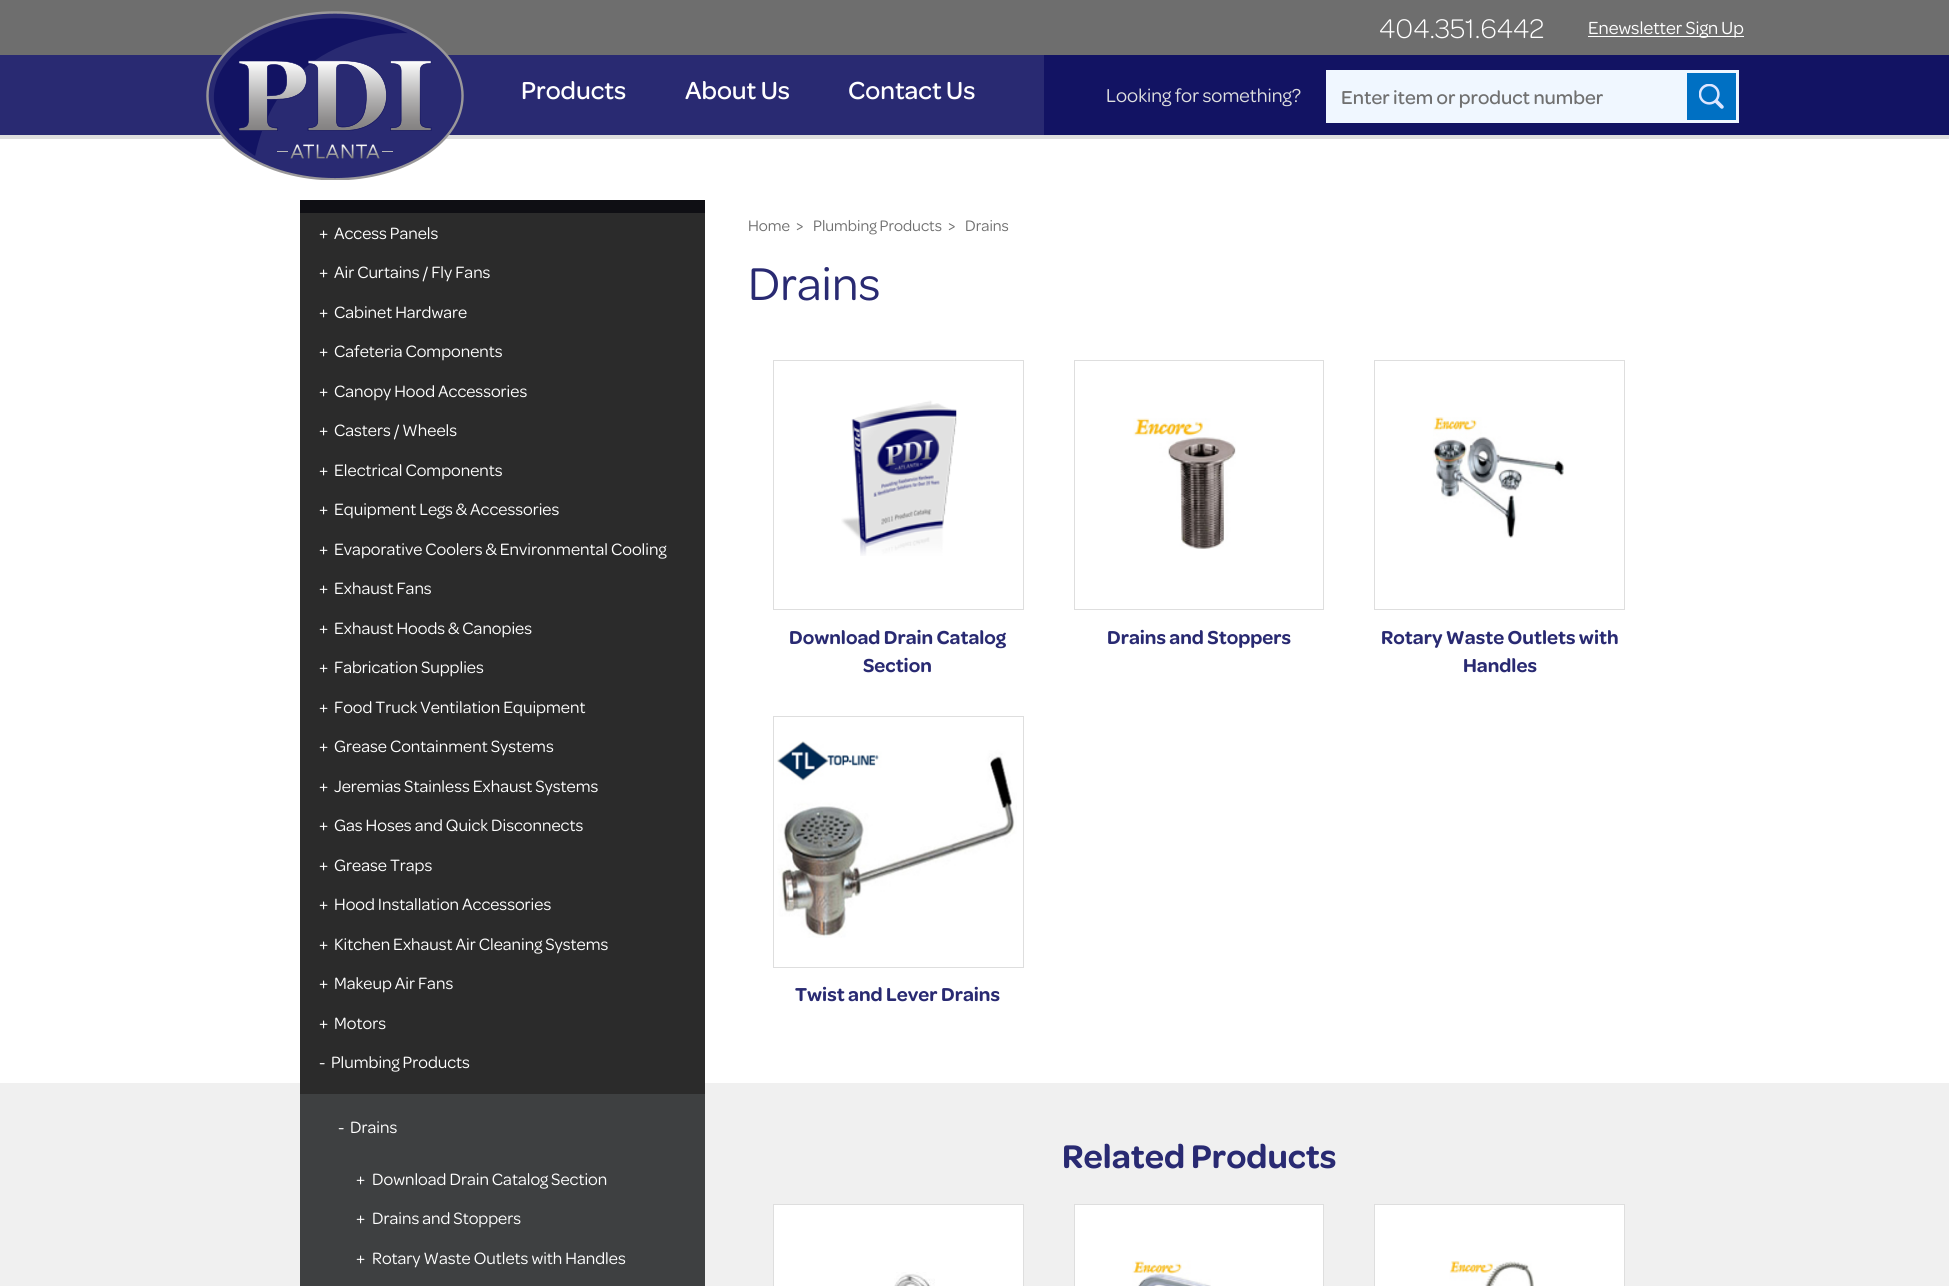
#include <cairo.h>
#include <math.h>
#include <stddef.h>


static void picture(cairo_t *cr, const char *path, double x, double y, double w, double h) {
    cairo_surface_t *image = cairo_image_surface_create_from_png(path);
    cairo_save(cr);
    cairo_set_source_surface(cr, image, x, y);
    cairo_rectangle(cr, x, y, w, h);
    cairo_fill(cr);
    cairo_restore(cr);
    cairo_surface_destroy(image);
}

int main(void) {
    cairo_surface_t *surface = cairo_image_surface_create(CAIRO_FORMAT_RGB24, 1949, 1286);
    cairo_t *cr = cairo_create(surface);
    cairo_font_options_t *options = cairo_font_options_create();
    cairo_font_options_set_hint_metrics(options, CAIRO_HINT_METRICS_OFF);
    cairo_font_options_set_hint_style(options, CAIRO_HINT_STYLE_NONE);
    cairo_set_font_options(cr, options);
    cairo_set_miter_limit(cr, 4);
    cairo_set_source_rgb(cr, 1, 1, 1);
    cairo_paint(cr);
    cairo_set_source_rgb(cr, 0.871, 0.871, 0.871);
    cairo_rectangle(cr, 0, 135, 1949, 4);
    cairo_fill(cr);
    cairo_set_source_rgb(cr, 0.431, 0.431, 0.431);
    cairo_rectangle(cr, 0, 0, 1949, 55);
    cairo_fill(cr);
    cairo_select_font_face(cr, "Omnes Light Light", CAIRO_FONT_SLANT_NORMAL, CAIRO_FONT_WEIGHT_NORMAL);
    cairo_set_font_size(cr, 28.75);
    cairo_set_source_rgb(cr, 1, 1, 1);
    cairo_move_to(cr, 1379, 38);
    cairo_show_text(cr, "404.351.6442");
    cairo_rectangle(cr, 1588, 36, 156, 1);
    cairo_fill(cr);
    cairo_select_font_face(cr, "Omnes", CAIRO_FONT_SLANT_NORMAL, CAIRO_FONT_WEIGHT_NORMAL);
    cairo_set_font_size(cr, 18.75);
    cairo_move_to(cr, 1588, 34);
    cairo_show_text(cr, "Enewsletter Sign Up");
    cairo_set_source_rgb(cr, 0.161, 0.165, 0.447);
    cairo_rectangle(cr, 0, 55, 1044, 80);
    cairo_fill(cr);
    picture(cr, "img1.png", 206, 11, 258, 169);
    cairo_select_font_face(cr, "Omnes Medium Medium", CAIRO_FONT_SLANT_NORMAL, CAIRO_FONT_WEIGHT_NORMAL);
    cairo_set_font_size(cr, 26.25);
    cairo_set_source_rgb(cr, 1, 1, 1);
    cairo_move_to(cr, 521, 99);
    cairo_show_text(cr, "Products");
    cairo_move_to(cr, 685, 99);
    cairo_show_text(cr, "About Us");
    cairo_move_to(cr, 848, 99);
    cairo_show_text(cr, "Contact Us");
    cairo_set_source_rgb(cr, 0.071, 0.075, 0.388);
    cairo_rectangle(cr, 1044, 55, 905, 80);
    cairo_fill(cr);
    cairo_select_font_face(cr, "Omnes", CAIRO_FONT_SLANT_NORMAL, CAIRO_FONT_WEIGHT_NORMAL);
    cairo_set_font_size(cr, 20);
    cairo_set_source_rgb(cr, 0.871, 0.871, 0.871);
    cairo_move_to(cr, 1106, 102);
    cairo_show_text(cr, "Looking for something?");
    cairo_set_source_rgb(cr, 0.941, 0.965, 1);
    cairo_rectangle(cr, 1326, 70, 358, 53);
    cairo_fill(cr);
    cairo_select_font_face(cr, "Omnes Medium Medium", CAIRO_FONT_SLANT_NORMAL, CAIRO_FONT_WEIGHT_NORMAL);
    cairo_set_source_rgb(cr, 0.439, 0.439, 0.439);
    cairo_move_to(cr, 1341, 104);
    cairo_show_text(cr, "Enter item or product number");
    cairo_set_source_rgb(cr, 0, 0.439, 0.765);
    cairo_rectangle(cr, 1687, 73, 49, 47);
    cairo_fill(cr);
    picture(cr, "img2.png", 1699, 84, 25, 25);
    cairo_rectangle(cr, 1685.5, 71.5, 52, 50);
    cairo_set_source_rgb(cr, 0.941, 0.965, 1);
    cairo_set_line_width(cr, 3);
    cairo_stroke(cr);
    cairo_set_source_rgb(cr, 0.941, 0.941, 0.941);
    cairo_rectangle(cr, 0, 1083, 1949, 203);
    cairo_fill(cr);
    cairo_set_source_rgb(cr, 0.169, 0.169, 0.169);
    cairo_rectangle(cr, 300, 213, 405, 881);
    cairo_fill(cr);
    cairo_set_source_rgb(cr, 0.059, 0.059, 0.082);
    cairo_rectangle(cr, 300, 200, 405, 13);
    cairo_fill(cr);
    cairo_select_font_face(cr, "Omnes", CAIRO_FONT_SLANT_NORMAL, CAIRO_FONT_WEIGHT_NORMAL);
    cairo_set_font_size(cr, 17.5);
    cairo_set_source_rgb(cr, 1, 1, 1);
    cairo_move_to(cr, 319, 239);
    cairo_show_text(cr, "+");
    cairo_move_to(cr, 334, 239);
    cairo_show_text(cr, "Access Panels");
    cairo_move_to(cr, 319, 278);
    cairo_show_text(cr, "+");
    cairo_move_to(cr, 334, 278);
    cairo_show_text(cr, "Air Curtains / Fly Fans");
    cairo_move_to(cr, 319, 318);
    cairo_show_text(cr, "+");
    cairo_move_to(cr, 334, 318);
    cairo_show_text(cr, "Cabinet Hardware");
    cairo_move_to(cr, 319, 357);
    cairo_show_text(cr, "+");
    cairo_move_to(cr, 334, 357);
    cairo_show_text(cr, "Cafeteria Components");
    cairo_move_to(cr, 319, 397);
    cairo_show_text(cr, "+");
    cairo_move_to(cr, 334, 397);
    cairo_show_text(cr, "Canopy Hood Accessories");
    cairo_move_to(cr, 319, 436);
    cairo_show_text(cr, "+");
    cairo_move_to(cr, 334, 436);
    cairo_show_text(cr, "Casters / Wheels");
    cairo_move_to(cr, 319, 476);
    cairo_show_text(cr, "+");
    cairo_move_to(cr, 334, 476);
    cairo_show_text(cr, "Electrical Components");
    cairo_move_to(cr, 319, 515);
    cairo_show_text(cr, "+");
    cairo_move_to(cr, 334, 515);
    cairo_show_text(cr, "Equipment Legs & Accessories");
    cairo_move_to(cr, 319, 555);
    cairo_show_text(cr, "+");
    cairo_move_to(cr, 334, 555);
    cairo_show_text(cr, "Evaporative Coolers & Environmental Cooling");
    cairo_move_to(cr, 319, 594);
    cairo_show_text(cr, "+");
    cairo_move_to(cr, 334, 594);
    cairo_show_text(cr, "Exhaust Fans");
    cairo_move_to(cr, 319, 634);
    cairo_show_text(cr, "+");
    cairo_move_to(cr, 334, 634);
    cairo_show_text(cr, "Exhaust Hoods & Canopies");
    cairo_move_to(cr, 319, 673);
    cairo_show_text(cr, "+");
    cairo_move_to(cr, 334, 673);
    cairo_show_text(cr, "Fabrication Supplies");
    cairo_move_to(cr, 319, 713);
    cairo_show_text(cr, "+");
    cairo_move_to(cr, 334, 713);
    cairo_show_text(cr, "Food Truck Ventilation Equipment");
    cairo_move_to(cr, 319, 752);
    cairo_show_text(cr, "+");
    cairo_move_to(cr, 334, 752);
    cairo_show_text(cr, "Grease Containment Systems");
    cairo_move_to(cr, 319, 792);
    cairo_show_text(cr, "+");
    cairo_move_to(cr, 334, 792);
    cairo_show_text(cr, "Jeremias Stainless Exhaust Systems");
    cairo_move_to(cr, 319, 831);
    cairo_show_text(cr, "+");
    cairo_move_to(cr, 334, 831);
    cairo_show_text(cr, "Gas Hoses and Quick Disconnects");
    cairo_move_to(cr, 319, 871);
    cairo_show_text(cr, "+");
    cairo_move_to(cr, 334, 871);
    cairo_show_text(cr, "Grease Traps");
    cairo_move_to(cr, 319, 910);
    cairo_show_text(cr, "+");
    cairo_move_to(cr, 334, 910);
    cairo_show_text(cr, "Hood Installation Accessories");
    cairo_move_to(cr, 319, 950);
    cairo_show_text(cr, "+");
    cairo_move_to(cr, 334, 950);
    cairo_show_text(cr, "Kitchen Exhaust Air Cleaning Systems");
    cairo_move_to(cr, 319, 989);
    cairo_show_text(cr, "+");
    cairo_move_to(cr, 334, 989);
    cairo_show_text(cr, "Makeup Air Fans");
    cairo_move_to(cr, 319, 1029);
    cairo_show_text(cr, "+");
    cairo_move_to(cr, 334, 1029);
    cairo_show_text(cr, "Motors");
    cairo_move_to(cr, 319, 1068);
    cairo_show_text(cr, "-");
    cairo_move_to(cr, 331, 1068);
    cairo_show_text(cr, "Plumbing Products");
    cairo_set_source_rgb(cr, 0.243, 0.251, 0.255);
    cairo_rectangle(cr, 300, 1094, 405, 192);
    cairo_fill(cr);
    cairo_set_source_rgb(cr, 1, 1, 1);
    cairo_move_to(cr, 338, 1133);
    cairo_show_text(cr, "-");
    cairo_move_to(cr, 350, 1133);
    cairo_show_text(cr, "Drains");
    cairo_move_to(cr, 356, 1185);
    cairo_show_text(cr, "+");
    cairo_move_to(cr, 372, 1185);
    cairo_show_text(cr, "Download Drain Catalog Section");
    cairo_move_to(cr, 356, 1224);
    cairo_show_text(cr, "+");
    cairo_move_to(cr, 372, 1224);
    cairo_show_text(cr, "Drains and Stoppers");
    cairo_move_to(cr, 356, 1264);
    cairo_show_text(cr, "+");
    cairo_move_to(cr, 372, 1264);
    cairo_show_text(cr, "Rotary Waste Outlets with Handles");
    cairo_set_font_size(cr, 16.25);
    cairo_set_source_rgb(cr, 0.439, 0.439, 0.439);
    cairo_move_to(cr, 748, 231);
    cairo_show_text(cr, "Home");
    cairo_move_to(cr, 796, 231);
    cairo_show_text(cr, ">");
    cairo_move_to(cr, 813, 231);
    cairo_show_text(cr, "Plumbing Products");
    cairo_move_to(cr, 948, 231);
    cairo_show_text(cr, ">");
    cairo_move_to(cr, 965, 231);
    cairo_show_text(cr, "Drains");
    cairo_set_font_size(cr, 49);
    cairo_set_source_rgb(cr, 0.161, 0.165, 0.447);
    cairo_move_to(cr, 748, 300);
    cairo_show_text(cr, "Drains");
    picture(cr, "img3.png", 841, 400, 116, 156);
    cairo_rectangle(cr, 773.5, 360.5, 250, 249);
    cairo_set_source_rgb(cr, 0.871, 0.871, 0.871);
    cairo_set_line_width(cr, 1);
    cairo_stroke(cr);
    cairo_select_font_face(cr, "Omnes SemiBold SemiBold", CAIRO_FONT_SLANT_NORMAL, CAIRO_FONT_WEIGHT_NORMAL);
    cairo_set_font_size(cr, 20);
    cairo_set_source_rgb(cr, 0.161, 0.165, 0.447);
    cairo_move_to(cr, 789, 644);
    cairo_show_text(cr, "Download Drain Catalog");
    cairo_move_to(cr, 863, 672);
    cairo_show_text(cr, "Section");
    picture(cr, "img4.png", 1133, 418, 103, 131);
    cairo_rectangle(cr, 1074.5, 360.5, 249, 249);
    cairo_set_source_rgb(cr, 0.871, 0.871, 0.871);
    cairo_stroke(cr);
    cairo_set_source_rgb(cr, 0.161, 0.165, 0.447);
    cairo_move_to(cr, 1107, 644);
    cairo_show_text(cr, "Drains and Stoppers");
    picture(cr, "img5.png", 1433, 417, 131, 121);
    cairo_rectangle(cr, 1374.5, 360.5, 250, 249);
    cairo_set_source_rgb(cr, 0.871, 0.871, 0.871);
    cairo_stroke(cr);
    cairo_set_source_rgb(cr, 0.161, 0.165, 0.447);
    cairo_move_to(cr, 1381, 644);
    cairo_show_text(cr, "Rotary Waste Outlets with");
    cairo_move_to(cr, 1463, 672);
    cairo_show_text(cr, "Handles");
    picture(cr, "img6.png", 777, 741, 240, 197);
    cairo_rectangle(cr, 773.5, 716.5, 250, 251);
    cairo_set_source_rgb(cr, 0.871, 0.871, 0.871);
    cairo_stroke(cr);
    cairo_set_source_rgb(cr, 0.161, 0.165, 0.447);
    cairo_move_to(cr, 795, 1001);
    cairo_show_text(cr, "Twist and Lever Drains");
    cairo_set_font_size(cr, 35);
    cairo_move_to(cr, 1062, 1168);
    cairo_show_text(cr, "Related Products");
    cairo_set_source_rgb(cr, 1, 1, 1);
    cairo_rectangle(cr, 774, 1205, 249, 81);
    cairo_fill(cr);
    picture(cr, "img7.png", 894, 1272, 41, 14);
    cairo_rectangle(cr, 773.5, 1204.5, 250, 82);
    cairo_set_source_rgb(cr, 0.871, 0.871, 0.871);
    cairo_stroke(cr);
    cairo_set_source_rgb(cr, 1, 1, 1);
    cairo_rectangle(cr, 1075, 1205, 248, 81);
    cairo_fill(cr);
    picture(cr, "img8.png", 1132, 1260, 79, 26);
    cairo_rectangle(cr, 1074.5, 1204.5, 249, 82);
    cairo_set_source_rgb(cr, 0.871, 0.871, 0.871);
    cairo_stroke(cr);
    cairo_set_source_rgb(cr, 1, 1, 1);
    cairo_rectangle(cr, 1375, 1205, 249, 81);
    cairo_fill(cr);
    picture(cr, "img9.png", 1449, 1261, 85, 25);
    cairo_rectangle(cr, 1374.5, 1204.5, 250, 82);
    cairo_set_source_rgb(cr, 0.871, 0.871, 0.871);
    cairo_stroke(cr);
    cairo_surface_write_to_png(surface, "page.png");
    cairo_font_options_destroy(options);
    cairo_destroy(cr);
    cairo_surface_destroy(surface);
    return 0;
}
